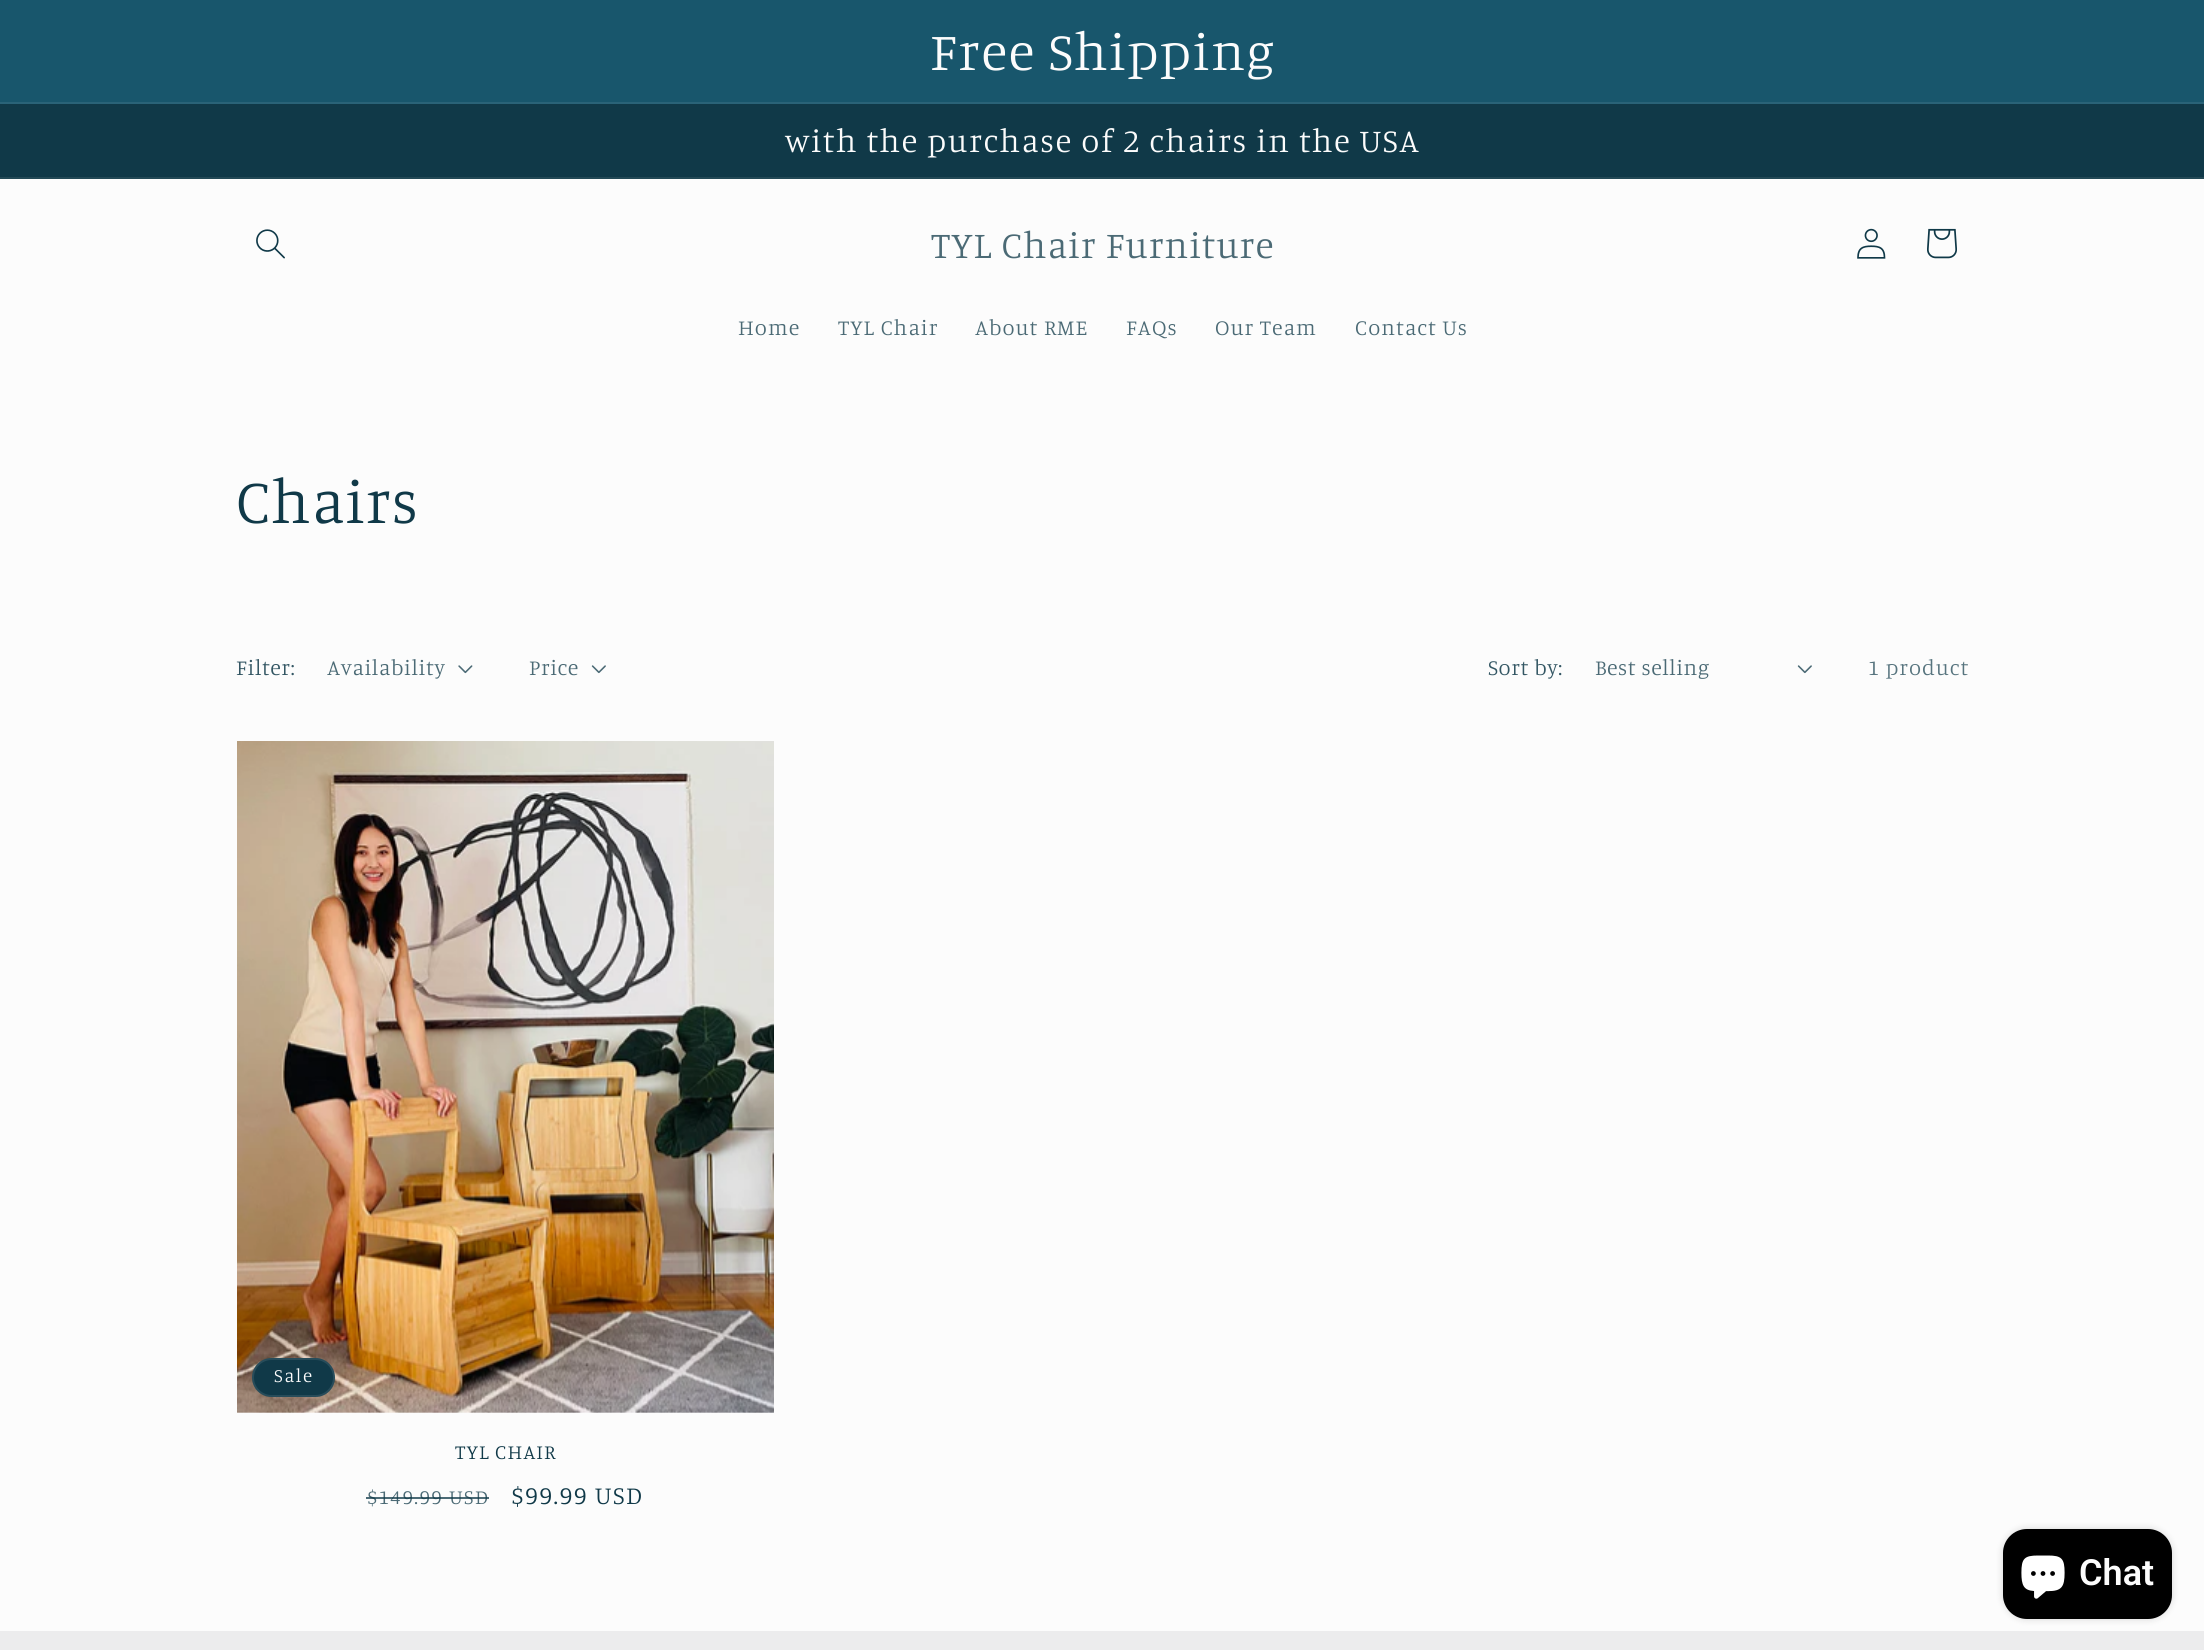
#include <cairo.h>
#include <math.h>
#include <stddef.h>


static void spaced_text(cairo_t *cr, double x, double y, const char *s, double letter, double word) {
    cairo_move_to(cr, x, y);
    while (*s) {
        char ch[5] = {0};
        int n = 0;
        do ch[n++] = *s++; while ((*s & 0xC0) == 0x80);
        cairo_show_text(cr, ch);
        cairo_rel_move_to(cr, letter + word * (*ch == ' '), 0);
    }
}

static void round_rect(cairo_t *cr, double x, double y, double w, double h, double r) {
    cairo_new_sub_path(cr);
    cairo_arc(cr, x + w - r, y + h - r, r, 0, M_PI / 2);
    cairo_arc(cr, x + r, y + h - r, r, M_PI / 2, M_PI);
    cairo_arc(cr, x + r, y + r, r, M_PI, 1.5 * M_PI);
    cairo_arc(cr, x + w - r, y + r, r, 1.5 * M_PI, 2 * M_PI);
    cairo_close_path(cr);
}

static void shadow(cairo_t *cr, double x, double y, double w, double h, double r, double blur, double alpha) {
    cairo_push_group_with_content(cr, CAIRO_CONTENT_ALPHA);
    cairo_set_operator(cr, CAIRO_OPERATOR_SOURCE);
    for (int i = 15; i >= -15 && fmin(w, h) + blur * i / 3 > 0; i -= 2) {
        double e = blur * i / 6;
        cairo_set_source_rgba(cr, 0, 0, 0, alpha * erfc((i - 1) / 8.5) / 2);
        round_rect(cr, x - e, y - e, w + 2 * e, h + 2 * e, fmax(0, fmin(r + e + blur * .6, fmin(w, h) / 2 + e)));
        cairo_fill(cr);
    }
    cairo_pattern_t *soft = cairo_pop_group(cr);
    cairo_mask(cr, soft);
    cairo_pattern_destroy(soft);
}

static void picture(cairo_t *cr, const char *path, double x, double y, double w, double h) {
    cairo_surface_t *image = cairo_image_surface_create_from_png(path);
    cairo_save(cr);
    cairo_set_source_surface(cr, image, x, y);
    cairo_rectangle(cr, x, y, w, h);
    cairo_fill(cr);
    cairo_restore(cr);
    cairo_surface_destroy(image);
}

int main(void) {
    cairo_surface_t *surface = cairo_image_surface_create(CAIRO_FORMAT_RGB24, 2204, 1650);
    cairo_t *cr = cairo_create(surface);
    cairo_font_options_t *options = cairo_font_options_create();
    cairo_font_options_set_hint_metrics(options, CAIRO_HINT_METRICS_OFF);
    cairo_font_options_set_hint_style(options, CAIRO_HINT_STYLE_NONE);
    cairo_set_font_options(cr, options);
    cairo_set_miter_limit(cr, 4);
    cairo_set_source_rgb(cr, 0.988, 0.988, 0.988);
    cairo_paint(cr);
    cairo_set_source_rgb(cr, 0.094, 0.337, 0.424);
    cairo_rectangle(cr, 0, 0, 2204, 102);
    cairo_fill(cr);
    cairo_set_source_rgb(cr, 0.165, 0.388, 0.471);
    cairo_rectangle(cr, 0, 102, 2204, 2);
    cairo_fill(cr);
    cairo_select_font_face(cr, "Manuale Light", CAIRO_FONT_SLANT_NORMAL, CAIRO_FONT_WEIGHT_NORMAL);
    cairo_set_font_size(cr, 54);
    cairo_set_source_rgb(cr, 0.988, 0.988, 0.988);
    spaced_text(cr, 930, 70, "Free Shipping", 1.6, 0);
    cairo_set_source_rgb(cr, 0.063, 0.224, 0.282);
    cairo_rectangle(cr, 0, 104, 2204, 73);
    cairo_fill(cr);
    cairo_set_source_rgb(cr, 0.137, 0.286, 0.337);
    cairo_rectangle(cr, 0, 177, 2204, 2);
    cairo_fill(cr);
    cairo_set_font_size(cr, 33);
    cairo_set_source_rgb(cr, 0.988, 0.988, 0.988);
    spaced_text(cr, 785, 152, "with the purchase of 2 chairs in the USA", 1.6, 0);
    picture(cr, "img1.png", 256, 229, 29, 30);
    cairo_set_font_size(cr, 37.75);
    cairo_set_source_rgb(cr, 0.294, 0.416, 0.459);
    spaced_text(cr, 931, 258, "TYL Chair Furniture", 1, 0);
    picture(cr, "img2.png", 1857, 228, 29, 31);
    picture(cr, "img3.png", 1927, 228, 30, 31);
    cairo_set_font_size(cr, 22);
    spaced_text(cr, 738, 335, "Home", 1, 0);
    spaced_text(cr, 838, 335, "TYL Chair", 1, 0);
    spaced_text(cr, 975, 335, "About RME", 1, 0);
    spaced_text(cr, 1126, 335, "FAQs", 1, 0);
    spaced_text(cr, 1215, 335, "Our Team", 1, 0);
    spaced_text(cr, 1355, 335, "Contact Us", 1, 0);
    cairo_set_font_size(cr, 63);
    cairo_set_source_rgb(cr, 0.063, 0.224, 0.282);
    spaced_text(cr, 236, 523, "Chairs", 1, 0);
    cairo_set_font_size(cr, 22);
    cairo_set_source_rgb(cr, 0.2, 0.337, 0.388);
    spaced_text(cr, 236, 675, "Filter:", 0.6, 0);
    cairo_set_source_rgb(cr, 0.294, 0.416, 0.459);
    spaced_text(cr, 327, 675, "Availability", 0.6, 0);
    picture(cr, "img4.png", 458, 665, 15, 9);
    spaced_text(cr, 529, 675, "Price", 0.6, 0);
    picture(cr, "img5.png", 591, 665, 15, 9);
    cairo_set_source_rgb(cr, 0.2, 0.337, 0.388);
    spaced_text(cr, 1488, 675, "Sort by:", 0.6, 0);
    cairo_set_source_rgb(cr, 0.294, 0.416, 0.459);
    spaced_text(cr, 1595, 675, "Best selling", 0.6, 0);
    picture(cr, "img5.png", 1797, 665, 15, 9);
    cairo_set_source_rgb(cr, 0.341, 0.455, 0.494);
    spaced_text(cr, 1868, 675, "1 product", 1, 0);
    picture(cr, "img6.png", 237, 741, 537, 672);
    cairo_set_source_rgb(cr, 0.063, 0.224, 0.282);
    round_rect(cr, 252, 1358, 83, 39, 19.5);
    cairo_fill(cr);
    round_rect(cr, 253, 1359, 81, 37, 18.5);
    cairo_set_source_rgba(cr, 0.988, 0.988, 0.988, 0.1);
    cairo_stroke(cr);
    cairo_set_font_size(cr, 19);
    cairo_set_source_rgb(cr, 0.988, 0.988, 0.988);
    spaced_text(cr, 274, 1382, "Sale", 1.6, 0);
    cairo_set_font_size(cr, 20.5);
    cairo_set_source_rgb(cr, 0.063, 0.224, 0.282);
    spaced_text(cr, 455, 1459, "TYL CHAIR", 1, 0);
    cairo_set_source_rgb(cr, 0.294, 0.416, 0.459);
    spaced_text(cr, 367, 1504, "$149.99 USD", 1.6, 0);
    cairo_set_source_rgba(cr, 0.063, 0.224, 0.282, 0.75);
    cairo_rectangle(cr, 366, 1497, 123, 2);
    cairo_fill(cr);
    cairo_set_font_size(cr, 25.25);
    cairo_set_source_rgb(cr, 0.063, 0.224, 0.282);
    spaced_text(cr, 511, 1504, "$99.99 USD", 1.6, 0);
    cairo_set_source_rgb(cr, 0.922, 0.925, 0.929);
    cairo_rectangle(cr, 0, 1631, 2204, 19);
    cairo_fill(cr);
    cairo_set_source_rgb(cr, 0, 0, 0);
    shadow(cr, 2003, 1529, 169, 90, 24, 4, 0.15);
    cairo_set_source_rgb(cr, 0, 0, 0);
    round_rect(cr, 2003, 1529, 169, 90, 24);
    cairo_fill(cr);
    picture(cr, "img7.png", 2021, 1555, 44, 44);
    cairo_select_font_face(cr, "Roboto SemiBold", CAIRO_FONT_SLANT_NORMAL, CAIRO_FONT_WEIGHT_NORMAL);
    cairo_set_font_size(cr, 36);
    cairo_set_source_rgb(cr, 0.988, 0.988, 0.988);
    cairo_move_to(cr, 2079, 1585);
    cairo_show_text(cr, "Chat");
    cairo_surface_write_to_png(surface, "page.png");
    cairo_font_options_destroy(options);
    cairo_destroy(cr);
    cairo_surface_destroy(surface);
    return 0;
}
